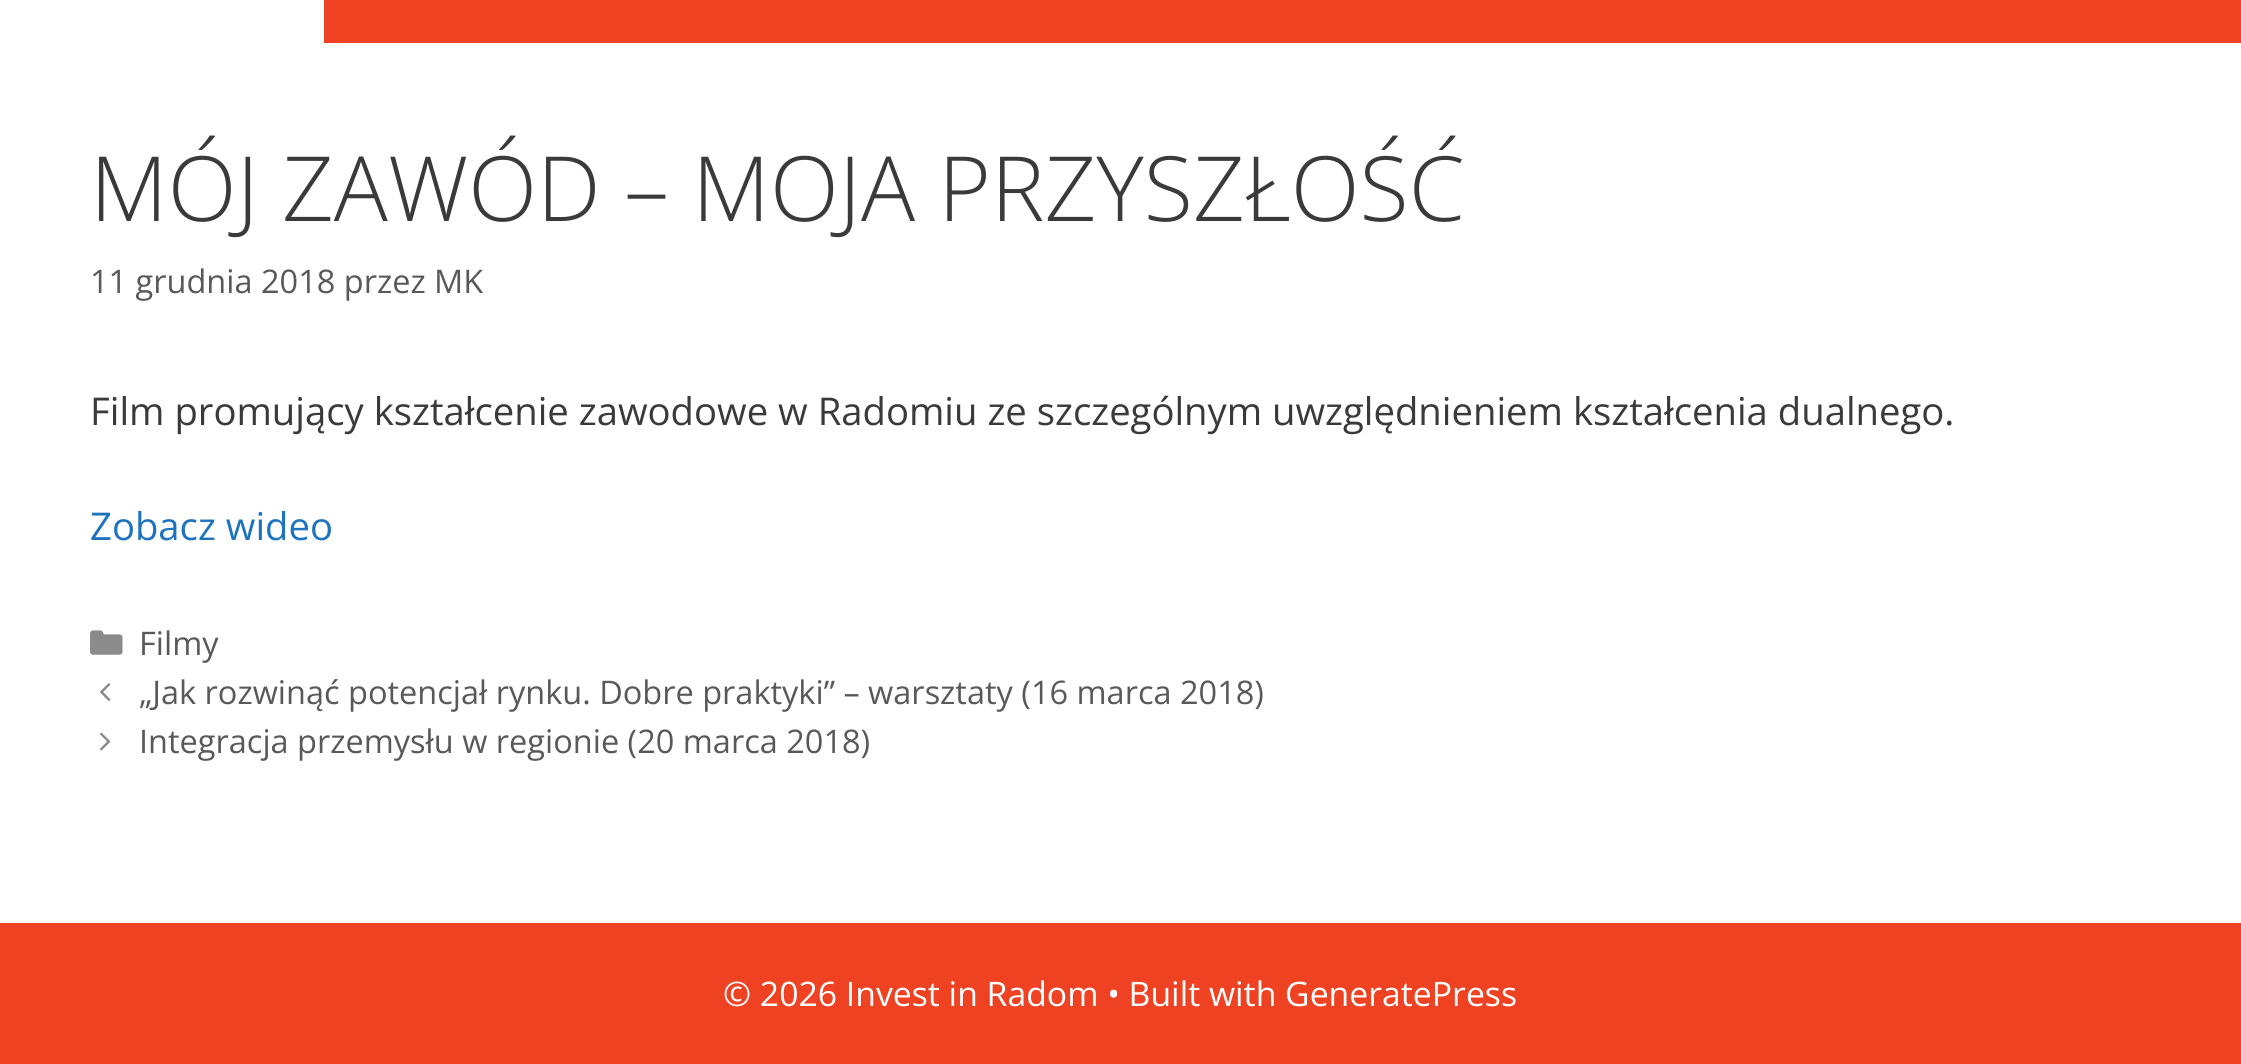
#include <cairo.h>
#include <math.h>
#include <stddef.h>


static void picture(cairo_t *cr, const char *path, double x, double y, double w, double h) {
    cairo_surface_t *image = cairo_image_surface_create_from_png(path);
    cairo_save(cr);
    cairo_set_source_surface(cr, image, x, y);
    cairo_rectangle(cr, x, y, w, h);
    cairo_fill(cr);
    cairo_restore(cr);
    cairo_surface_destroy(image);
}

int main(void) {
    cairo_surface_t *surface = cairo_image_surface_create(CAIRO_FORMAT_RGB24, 2241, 1064);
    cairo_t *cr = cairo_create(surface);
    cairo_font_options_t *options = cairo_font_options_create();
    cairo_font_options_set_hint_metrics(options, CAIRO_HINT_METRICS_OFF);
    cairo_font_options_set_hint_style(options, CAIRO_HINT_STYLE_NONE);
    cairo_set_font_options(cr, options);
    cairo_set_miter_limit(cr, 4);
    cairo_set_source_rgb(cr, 0.937, 0.259, 0.137);
    cairo_paint(cr);
    cairo_set_source_rgb(cr, 1, 1, 1);
    cairo_rectangle(cr, 0, 0, 324, 43);
    cairo_fill(cr);
    cairo_rectangle(cr, 0, 43, 2241, 880);
    cairo_fill(cr);
    cairo_select_font_face(cr, "Open Sans Light", CAIRO_FONT_SLANT_NORMAL, CAIRO_FONT_WEIGHT_NORMAL);
    cairo_set_font_size(cr, 90);
    cairo_set_source_rgb(cr, 0.227, 0.227, 0.227);
    cairo_move_to(cr, 90, 221);
    cairo_show_text(cr, "MÓJ ZAWÓD – MOJA PRZYSZŁOŚĆ");
    cairo_select_font_face(cr, "Open Sans", CAIRO_FONT_SLANT_NORMAL, CAIRO_FONT_WEIGHT_NORMAL);
    cairo_set_font_size(cr, 32.5);
    cairo_set_source_rgb(cr, 0.349, 0.349, 0.349);
    cairo_move_to(cr, 90, 293);
    cairo_show_text(cr, "11 grudnia 2018 przez MK");
    cairo_set_font_size(cr, 38.25);
    cairo_set_source_rgb(cr, 0.227, 0.227, 0.227);
    cairo_move_to(cr, 90, 425);
    cairo_show_text(cr, "Film promujący kształcenie zawodowe w Radomiu ze szczególnym uwzględnieniem kształcenia dualnego.");
    cairo_set_source_rgb(cr, 0.118, 0.451, 0.745);
    cairo_move_to(cr, 90, 540);
    cairo_show_text(cr, "Zobacz wideo");
    picture(cr, "img1.png", 90, 630, 33, 25);
    cairo_set_font_size(cr, 32.5);
    cairo_set_source_rgb(cr, 0.349, 0.349, 0.349);
    cairo_move_to(cr, 139, 655);
    cairo_show_text(cr, "Filmy");
    picture(cr, "img2.png", 99, 683, 12, 18);
    cairo_move_to(cr, 139, 704);
    cairo_show_text(cr, "„Jak rozwinąć potencjał rynku. Dobre praktyki” – warsztaty (16 marca 2018)");
    picture(cr, "img3.png", 99, 732, 12, 19);
    cairo_move_to(cr, 139, 753);
    cairo_show_text(cr, "Integracja przemysłu w regionie (20 marca 2018)");
    cairo_set_font_size(cr, 33.75);
    cairo_set_source_rgb(cr, 1, 1, 1);
    cairo_move_to(cr, 723, 1006);
    cairo_show_text(cr, "© 2026 Invest in Radom • Built with GeneratePress");
    cairo_surface_write_to_png(surface, "page.png");
    cairo_font_options_destroy(options);
    cairo_destroy(cr);
    cairo_surface_destroy(surface);
    return 0;
}
